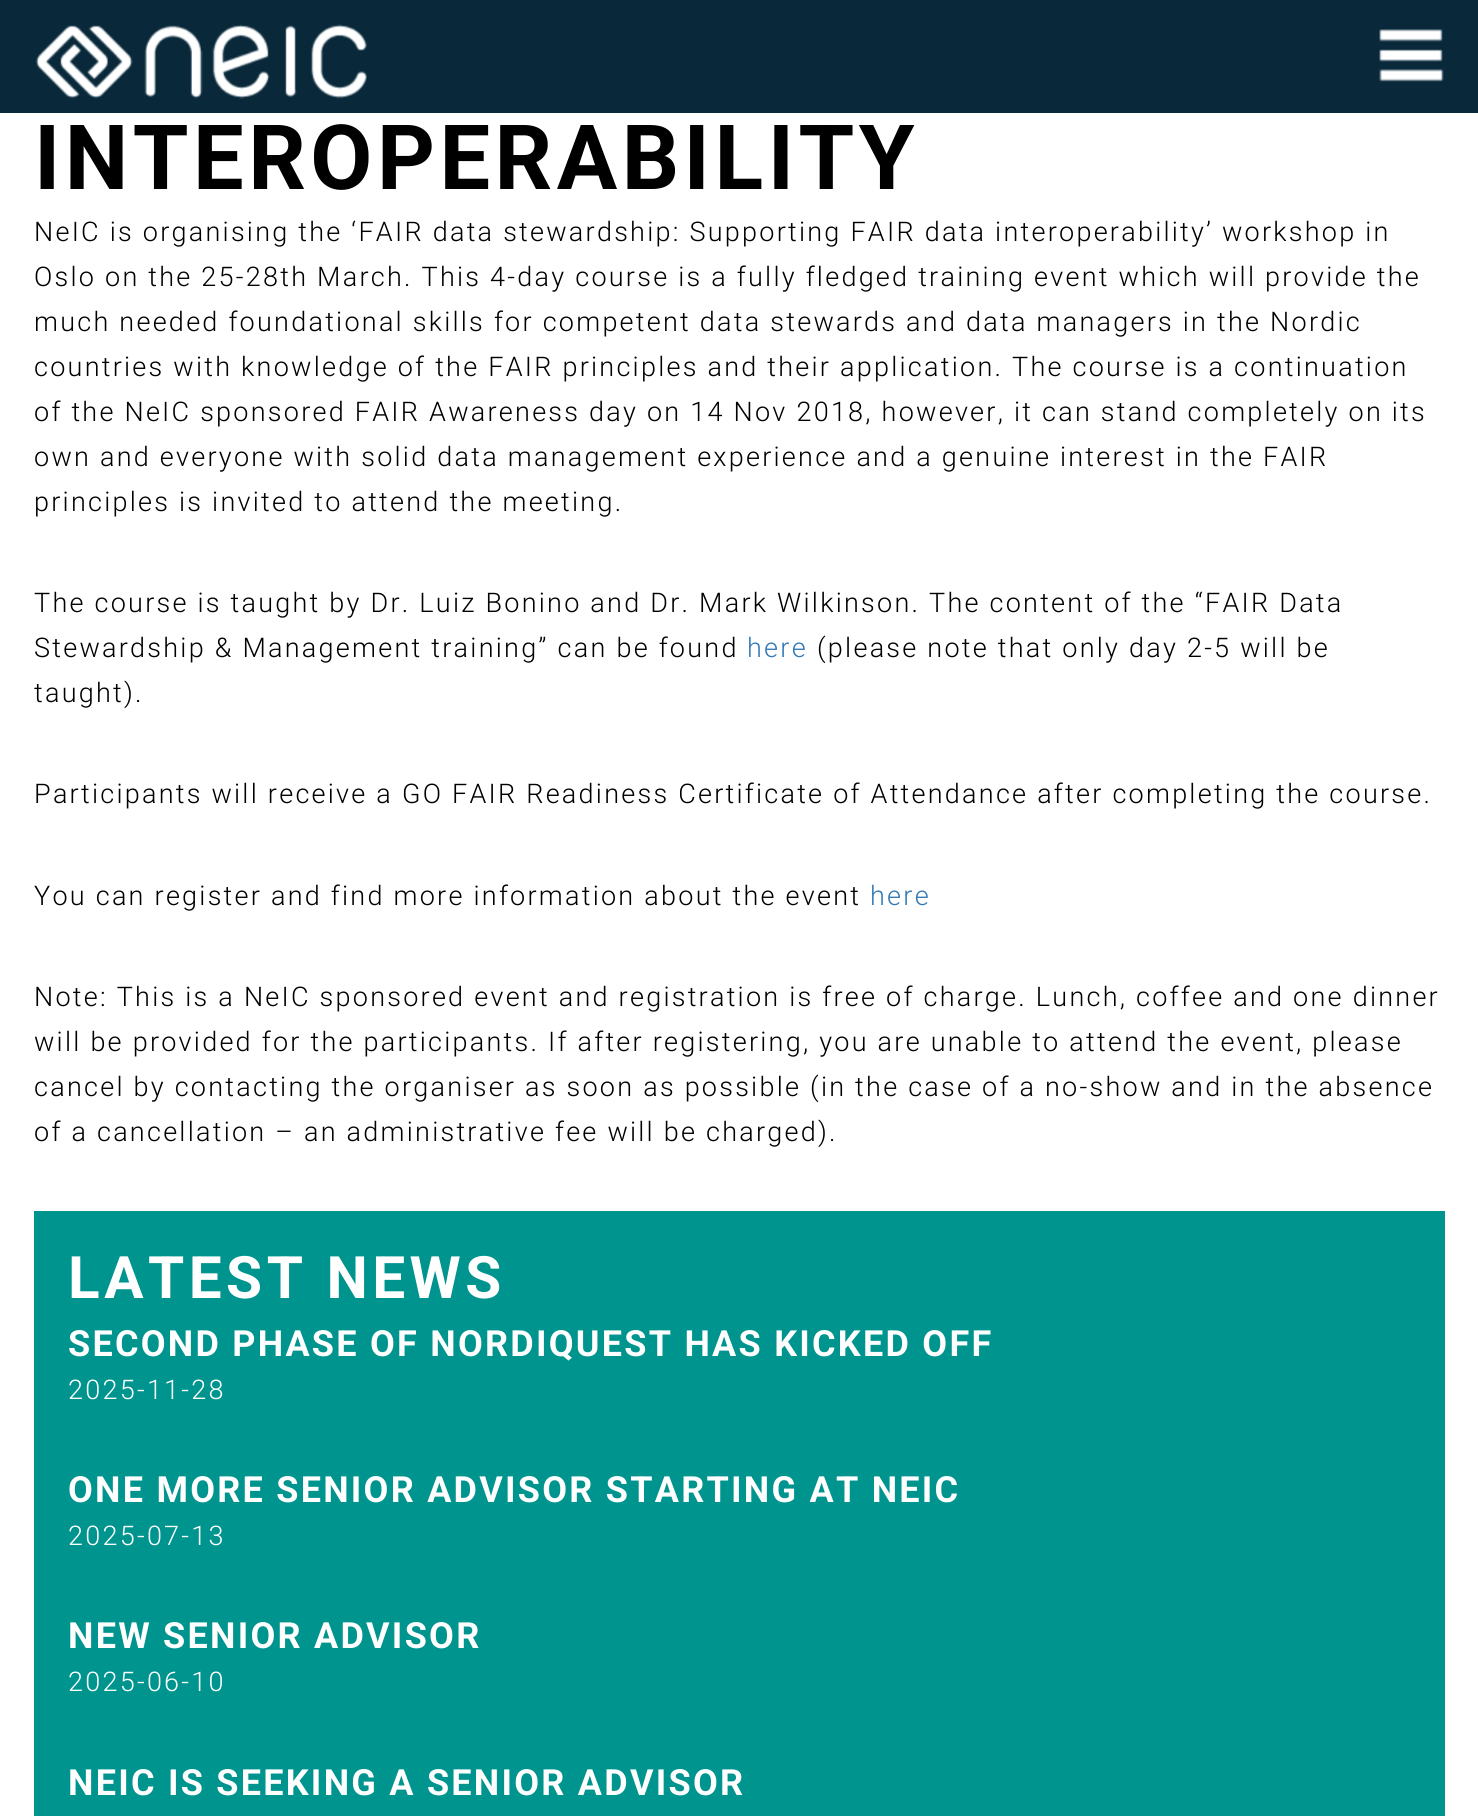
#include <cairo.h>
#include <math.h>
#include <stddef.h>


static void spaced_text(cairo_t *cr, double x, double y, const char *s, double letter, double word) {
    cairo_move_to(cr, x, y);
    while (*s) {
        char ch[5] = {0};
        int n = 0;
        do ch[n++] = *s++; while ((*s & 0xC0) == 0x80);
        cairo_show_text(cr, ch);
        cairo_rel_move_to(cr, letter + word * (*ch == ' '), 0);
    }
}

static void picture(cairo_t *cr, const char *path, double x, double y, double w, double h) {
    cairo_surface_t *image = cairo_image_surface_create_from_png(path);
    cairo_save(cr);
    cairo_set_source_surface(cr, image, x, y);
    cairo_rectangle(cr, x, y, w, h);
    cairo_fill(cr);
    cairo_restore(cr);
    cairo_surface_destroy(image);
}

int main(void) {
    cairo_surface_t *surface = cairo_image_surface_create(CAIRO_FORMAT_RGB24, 1478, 1816);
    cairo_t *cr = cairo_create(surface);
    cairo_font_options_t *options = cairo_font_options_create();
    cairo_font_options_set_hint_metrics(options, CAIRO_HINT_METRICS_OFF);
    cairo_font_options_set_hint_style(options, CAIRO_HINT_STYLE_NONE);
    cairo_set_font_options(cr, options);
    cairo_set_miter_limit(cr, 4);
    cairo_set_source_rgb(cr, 1, 1, 1);
    cairo_paint(cr);
    cairo_set_source_rgb(cr, 0.039, 0.161, 0.231);
    cairo_rectangle(cr, 0, 0, 1478, 113);
    cairo_fill(cr);
    picture(cr, "img1.png", 35, 24, 332, 75);
    picture(cr, "img2.png", 1379, 29, 65, 53);
    cairo_select_font_face(cr, "Roboto", CAIRO_FONT_SLANT_NORMAL, CAIRO_FONT_WEIGHT_BOLD);
    cairo_set_font_size(cr, 90);
    cairo_set_source_rgb(cr, 0, 0, 0);
    spaced_text(cr, 34, 189, "INTEROPERABILITY", 4.5, 0);
    cairo_select_font_face(cr, "Roboto Light", CAIRO_FONT_SLANT_NORMAL, CAIRO_FONT_WEIGHT_NORMAL);
    cairo_set_font_size(cr, 27);
    spaced_text(cr, 34, 241, "NeIC is organising the ‘FAIR data stewardship: Supporting FAIR data interoperability’ workshop in", 2.25, 0);
    spaced_text(cr, 34, 286, "Oslo on the 25-28th March. This 4-day course is a fully fledged training event which will provide the", 2.25, 0);
    spaced_text(cr, 34, 331, "much needed foundational skills for competent data stewards and data managers in the Nordic", 2.25, 0);
    spaced_text(cr, 34, 376, "countries with knowledge of the FAIR principles and their application. The course is a continuation", 2.25, 0);
    spaced_text(cr, 34, 421, "of the NeIC sponsored FAIR Awareness day on 14 Nov 2018, however, it can stand completely on its", 2.25, 0);
    spaced_text(cr, 34, 466, "own and everyone with solid data management experience and a genuine interest in the FAIR", 2.25, 0);
    spaced_text(cr, 34, 511, "principles is invited to attend the meeting.", 2.25, 0);
    spaced_text(cr, 34, 612, "The course is taught by Dr. Luiz Bonino and Dr. Mark Wilkinson. The content of the “FAIR Data", 2.25, 0);
    spaced_text(cr, 34, 657, "Stewardship & Management training” can be found", 2.25, 0);
    cairo_set_source_rgb(cr, 0.2, 0.478, 0.718);
    spaced_text(cr, 747, 657, "here", 2.25, 0);
    cairo_set_source_rgb(cr, 0, 0, 0);
    spaced_text(cr, 817, 657, "(please note that only day 2-5 will be", 2.25, 0);
    spaced_text(cr, 34, 702, "taught).", 2.25, 0);
    spaced_text(cr, 34, 803, "Participants will receive a GO FAIR Readiness Certificate of Attendance after completing the course.", 2.25, 0);
    spaced_text(cr, 34, 905, "You can register and find more information about the event", 2.25, 0);
    cairo_set_source_rgb(cr, 0.2, 0.478, 0.718);
    spaced_text(cr, 870, 905, "here", 2.25, 0);
    cairo_set_source_rgb(cr, 0, 0, 0);
    spaced_text(cr, 34, 1006, "Note: This is a NeIC sponsored event and registration is free of charge. Lunch, coffee and one dinner", 2.25, 0);
    spaced_text(cr, 34, 1051, "will be provided for the participants. If after registering, you are unable to attend the event, please", 2.25, 0);
    spaced_text(cr, 34, 1096, "cancel by contacting the organiser as soon as possible (in the case of a no-show and in the absence", 2.25, 0);
    spaced_text(cr, 34, 1141, "of a cancellation – an administrative fee will be charged).", 2.25, 0);
    cairo_set_source_rgb(cr, 0, 0.58, 0.561);
    cairo_rectangle(cr, 34, 1211, 1411, 605);
    cairo_fill(cr);
    cairo_select_font_face(cr, "Roboto", CAIRO_FONT_SLANT_NORMAL, CAIRO_FONT_WEIGHT_BOLD);
    cairo_set_font_size(cr, 58.5);
    cairo_set_source_rgb(cr, 1, 1, 1);
    spaced_text(cr, 68, 1298, "LATEST NEWS", 4.5, 0);
    cairo_set_font_size(cr, 36);
    spaced_text(cr, 68, 1356, "SECOND PHASE OF NORDIQUEST HAS KICKED OFF", 2.25, 0);
    cairo_select_font_face(cr, "Roboto Light", CAIRO_FONT_SLANT_NORMAL, CAIRO_FONT_WEIGHT_NORMAL);
    cairo_set_font_size(cr, 27);
    spaced_text(cr, 68, 1399, "2025-11-28", 2.25, 0);
    cairo_select_font_face(cr, "Roboto", CAIRO_FONT_SLANT_NORMAL, CAIRO_FONT_WEIGHT_BOLD);
    cairo_set_font_size(cr, 36);
    spaced_text(cr, 68, 1502, "ONE MORE SENIOR ADVISOR STARTING AT NEIC", 2.25, 0);
    cairo_select_font_face(cr, "Roboto Light", CAIRO_FONT_SLANT_NORMAL, CAIRO_FONT_WEIGHT_NORMAL);
    cairo_set_font_size(cr, 27);
    spaced_text(cr, 68, 1545, "2025-07-13", 2.25, 0);
    cairo_select_font_face(cr, "Roboto", CAIRO_FONT_SLANT_NORMAL, CAIRO_FONT_WEIGHT_BOLD);
    cairo_set_font_size(cr, 36);
    spaced_text(cr, 68, 1648, "NEW SENIOR ADVISOR", 2.25, 0);
    cairo_select_font_face(cr, "Roboto Light", CAIRO_FONT_SLANT_NORMAL, CAIRO_FONT_WEIGHT_NORMAL);
    cairo_set_font_size(cr, 27);
    spaced_text(cr, 68, 1691, "2025-06-10", 2.25, 0);
    cairo_select_font_face(cr, "Roboto", CAIRO_FONT_SLANT_NORMAL, CAIRO_FONT_WEIGHT_BOLD);
    cairo_set_font_size(cr, 36);
    spaced_text(cr, 68, 1795, "NEIC IS SEEKING A SENIOR ADVISOR", 2.25, 0);
    cairo_surface_write_to_png(surface, "page.png");
    cairo_font_options_destroy(options);
    cairo_destroy(cr);
    cairo_surface_destroy(surface);
    return 0;
}
